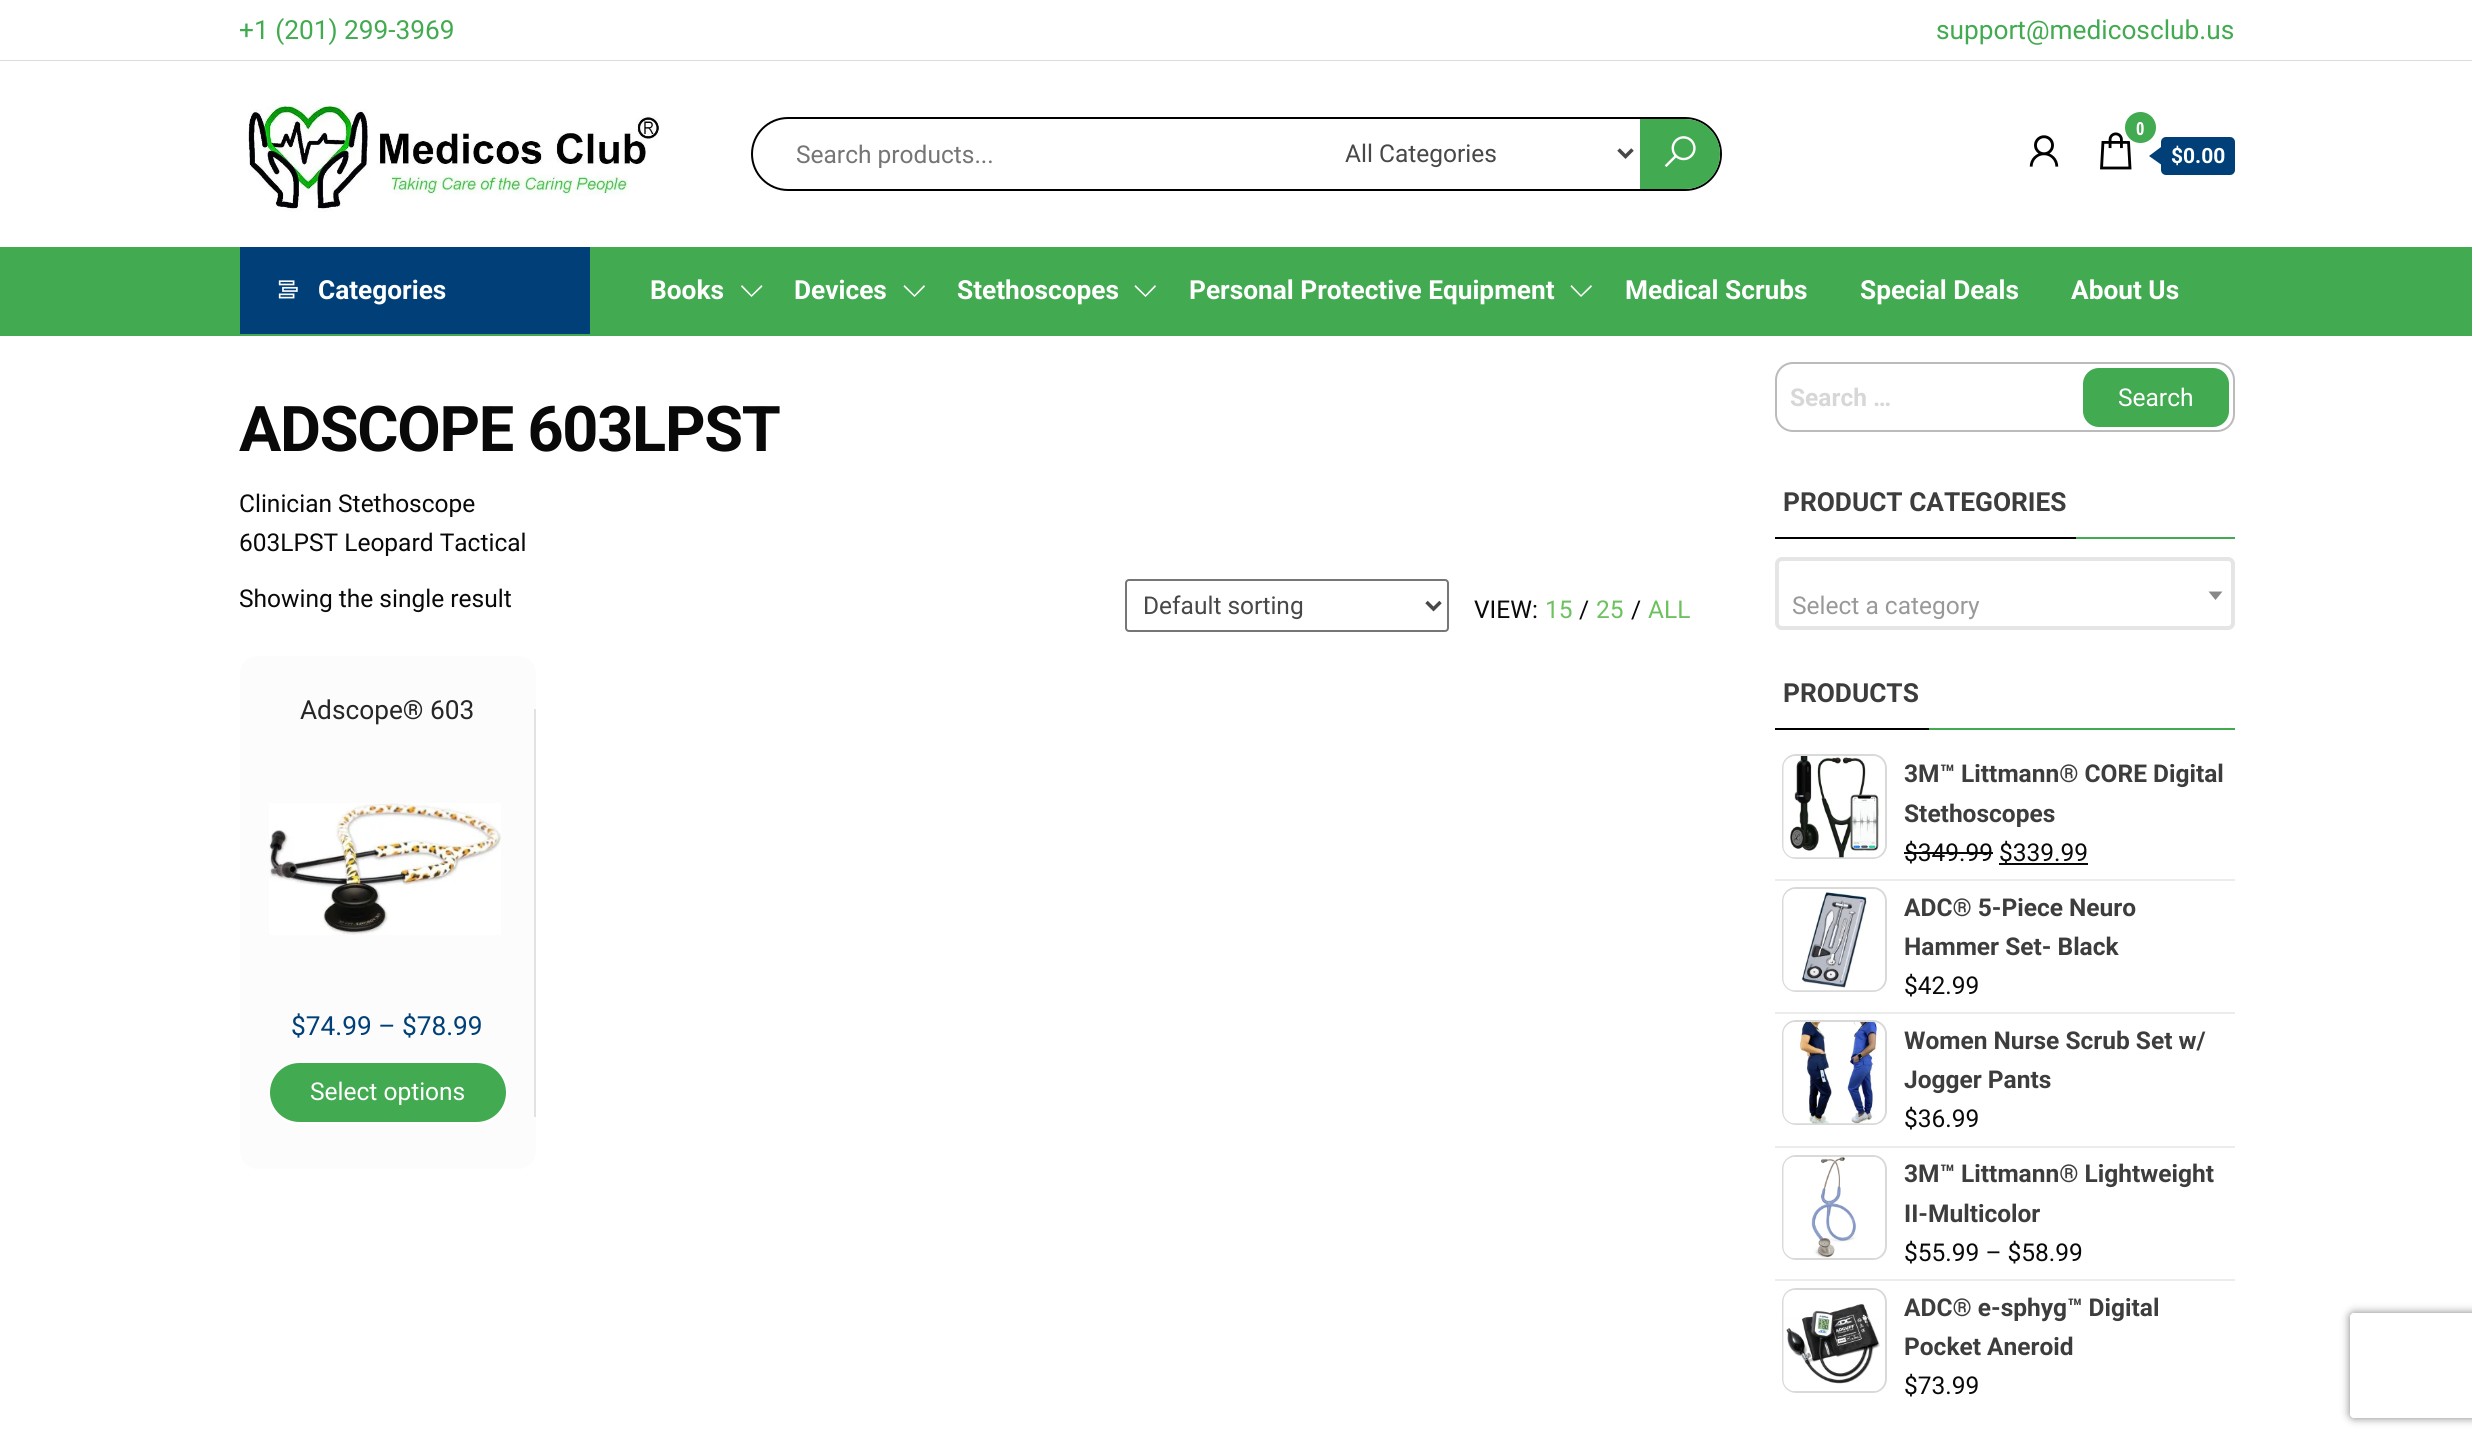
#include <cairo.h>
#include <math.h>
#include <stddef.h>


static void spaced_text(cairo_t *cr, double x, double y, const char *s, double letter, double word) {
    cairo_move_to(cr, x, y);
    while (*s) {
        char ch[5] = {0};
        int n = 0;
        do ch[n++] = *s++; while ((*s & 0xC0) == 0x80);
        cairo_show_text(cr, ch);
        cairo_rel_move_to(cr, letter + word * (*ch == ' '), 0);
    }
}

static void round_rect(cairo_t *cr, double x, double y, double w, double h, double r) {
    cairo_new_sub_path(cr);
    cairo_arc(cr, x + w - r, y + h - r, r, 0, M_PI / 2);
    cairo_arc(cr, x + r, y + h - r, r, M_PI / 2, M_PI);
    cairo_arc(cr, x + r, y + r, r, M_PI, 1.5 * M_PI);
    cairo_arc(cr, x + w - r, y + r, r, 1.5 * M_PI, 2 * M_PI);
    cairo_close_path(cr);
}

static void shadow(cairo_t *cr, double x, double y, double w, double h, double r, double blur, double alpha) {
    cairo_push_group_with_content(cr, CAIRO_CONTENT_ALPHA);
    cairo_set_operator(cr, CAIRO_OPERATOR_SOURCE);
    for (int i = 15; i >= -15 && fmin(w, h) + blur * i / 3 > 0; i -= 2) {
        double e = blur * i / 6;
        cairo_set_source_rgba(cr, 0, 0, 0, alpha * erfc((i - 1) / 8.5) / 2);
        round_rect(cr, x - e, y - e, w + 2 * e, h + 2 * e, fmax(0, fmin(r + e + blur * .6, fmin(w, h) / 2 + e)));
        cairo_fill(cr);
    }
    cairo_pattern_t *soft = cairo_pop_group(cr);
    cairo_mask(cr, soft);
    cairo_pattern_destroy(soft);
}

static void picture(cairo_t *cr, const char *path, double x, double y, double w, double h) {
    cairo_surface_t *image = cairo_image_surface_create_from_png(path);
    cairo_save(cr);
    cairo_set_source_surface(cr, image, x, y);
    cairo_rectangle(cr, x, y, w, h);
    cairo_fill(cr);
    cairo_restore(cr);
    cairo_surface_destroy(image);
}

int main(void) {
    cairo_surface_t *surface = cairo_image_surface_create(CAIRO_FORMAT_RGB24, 2472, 1441);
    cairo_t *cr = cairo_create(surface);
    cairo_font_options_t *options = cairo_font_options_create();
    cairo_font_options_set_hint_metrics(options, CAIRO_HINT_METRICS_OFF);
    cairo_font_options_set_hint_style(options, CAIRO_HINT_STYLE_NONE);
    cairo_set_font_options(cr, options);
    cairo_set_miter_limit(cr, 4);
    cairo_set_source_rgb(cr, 1, 1, 1);
    cairo_paint(cr);
    cairo_set_source_rgb(cr, 0.867, 0.867, 0.867);
    cairo_rectangle(cr, 0, 60, 2472, 1);
    cairo_fill(cr);
    cairo_select_font_face(cr, "Roboto", CAIRO_FONT_SLANT_NORMAL, CAIRO_FONT_WEIGHT_NORMAL);
    cairo_set_font_size(cr, 26.25);
    cairo_set_source_rgb(cr, 0.259, 0.667, 0.314);
    cairo_move_to(cr, 239, 39);
    cairo_show_text(cr, "+1 (201) 299-3969");
    cairo_move_to(cr, 1936, 39);
    cairo_show_text(cr, "support@medicosclub.us");
    picture(cr, "img1.png", 248, 105, 411, 107);
    round_rect(cr, 752, 118, 969, 72, 36);
    cairo_set_source_rgb(cr, 0, 0, 0);
    cairo_stroke(cr);
    cairo_set_font_size(cr, 24.5);
    cairo_set_source_rgb(cr, 0.459, 0.459, 0.459);
    cairo_move_to(cr, 796, 163);
    cairo_show_text(cr, "Search products...");
    cairo_new_path(cr);
    cairo_move_to(cr, 1618.5, 149.5);
    cairo_line_to(cr, 1625.5, 156.5);
    cairo_line_to(cr, 1632.5, 149.5);
    cairo_set_source_rgb(cr, 0.282, 0.282, 0.282);
    cairo_set_line_width(cr, 3.5);
    cairo_stroke(cr);
    cairo_move_to(cr, 1345, 162);
    cairo_show_text(cr, "All Categories");
    cairo_set_source_rgb(cr, 0.259, 0.667, 0.314);
    cairo_new_path(cr);
    cairo_move_to(cr, 1640, 119);
    cairo_line_to(cr, 1685, 119);
    cairo_curve_to(cr, 1704.5, 119, 1720, 134.5, 1720, 154);
    cairo_curve_to(cr, 1720, 173.5, 1704.5, 189, 1685, 189);
    cairo_line_to(cr, 1640, 189);
    cairo_close_path(cr);
    cairo_fill(cr);
    picture(cr, "img2.png", 1664, 136, 32, 31);
    picture(cr, "img3.png", 2029, 135, 30, 32);
    picture(cr, "img4.png", 2100, 132, 32, 38);
    cairo_arc(cr, 2140.5, 127.5, 16.5, 0, 2 * M_PI);
    cairo_fill_preserve(cr);
    cairo_set_source_rgb(cr, 1, 1, 1);
    cairo_set_line_width(cr, 2);
    cairo_stroke(cr);
    cairo_select_font_face(cr, "Open Sans Condensed", CAIRO_FONT_SLANT_NORMAL, CAIRO_FONT_WEIGHT_BOLD);
    cairo_set_font_size(cr, 18);
    cairo_move_to(cr, 2136, 135);
    cairo_show_text(cr, "0");
    cairo_set_source_rgb(cr, 0, 0.247, 0.467);
    round_rect(cr, 2161, 137, 74, 38, 5);
    cairo_fill(cr);
    cairo_new_path(cr);
    cairo_move_to(cr, 2161, 147);
    cairo_line_to(cr, 2161, 164.5);
    cairo_line_to(cr, 2149, 156);
    cairo_close_path(cr);
    cairo_fill(cr);
    cairo_select_font_face(cr, "Roboto", CAIRO_FONT_SLANT_NORMAL, CAIRO_FONT_WEIGHT_BOLD);
    cairo_set_font_size(cr, 21);
    cairo_set_source_rgb(cr, 1, 1, 1);
    cairo_move_to(cr, 2171, 163);
    cairo_show_text(cr, "$0.00");
    cairo_set_source_rgb(cr, 0.259, 0.667, 0.314);
    cairo_rectangle(cr, 0, 247, 2472, 89);
    cairo_fill(cr);
    cairo_set_source_rgb(cr, 0, 0.247, 0.467);
    cairo_rectangle(cr, 240, 247, 350, 87);
    cairo_fill(cr);
    picture(cr, "img5.png", 278, 280, 20, 19);
    cairo_set_font_size(cr, 26.25);
    cairo_set_source_rgb(cr, 1, 1, 1);
    cairo_move_to(cr, 318, 299);
    cairo_show_text(cr, "Categories");
    cairo_move_to(cr, 650, 299);
    cairo_show_text(cr, "Books");
    cairo_new_path(cr);
    cairo_move_to(cr, 742, 285);
    cairo_line_to(cr, 741, 286.5);
    cairo_line_to(cr, 751.5, 297);
    cairo_line_to(cr, 762.5, 286.5);
    cairo_line_to(cr, 761.5, 285);
    cairo_line_to(cr, 751.5, 295);
    cairo_close_path(cr);
    cairo_fill(cr);
    cairo_move_to(cr, 794, 299);
    cairo_show_text(cr, "Devices");
    cairo_new_path(cr);
    cairo_move_to(cr, 904.5, 285);
    cairo_line_to(cr, 903.5, 286.5);
    cairo_line_to(cr, 914.5, 297);
    cairo_line_to(cr, 925, 286.5);
    cairo_line_to(cr, 924, 285);
    cairo_line_to(cr, 914.5, 295);
    cairo_close_path(cr);
    cairo_fill(cr);
    cairo_move_to(cr, 957, 299);
    cairo_show_text(cr, "Stethoscopes");
    cairo_new_path(cr);
    cairo_move_to(cr, 1135.5, 285);
    cairo_line_to(cr, 1134.5, 286.5);
    cairo_line_to(cr, 1145.5, 297);
    cairo_line_to(cr, 1156, 286.5);
    cairo_line_to(cr, 1155, 285);
    cairo_line_to(cr, 1145.5, 295);
    cairo_close_path(cr);
    cairo_fill(cr);
    cairo_move_to(cr, 1189, 299);
    cairo_show_text(cr, "Personal Protective Equipment");
    cairo_new_path(cr);
    cairo_move_to(cr, 1571.5, 285);
    cairo_line_to(cr, 1570.5, 286.5);
    cairo_line_to(cr, 1581, 297);
    cairo_line_to(cr, 1592, 286.5);
    cairo_line_to(cr, 1591, 285);
    cairo_line_to(cr, 1581, 295);
    cairo_close_path(cr);
    cairo_fill(cr);
    cairo_move_to(cr, 1625, 299);
    cairo_show_text(cr, "Medical Scrubs");
    cairo_move_to(cr, 1860, 299);
    cairo_show_text(cr, "Special Deals");
    cairo_move_to(cr, 2071, 299);
    cairo_show_text(cr, "About Us");
    cairo_set_font_size(cr, 63);
    cairo_set_source_rgb(cr, 0.039, 0.039, 0.039);
    spaced_text(cr, 239, 451, "ADSCOPE 603LPST", -1.25, 0);
    cairo_select_font_face(cr, "Roboto", CAIRO_FONT_SLANT_NORMAL, CAIRO_FONT_WEIGHT_NORMAL);
    cairo_set_font_size(cr, 24.5);
    cairo_move_to(cr, 239, 512);
    cairo_show_text(cr, "Clinician Stethoscope");
    cairo_move_to(cr, 239, 551);
    cairo_show_text(cr, "603LPST Leopard Tactical");
    cairo_move_to(cr, 239, 607);
    cairo_show_text(cr, "Showing the single result");
    round_rect(cr, 1126, 580, 322, 51, 3);
    cairo_set_source_rgb(cr, 0.463, 0.463, 0.463);
    cairo_stroke(cr);
    cairo_new_path(cr);
    cairo_move_to(cr, 1426.5, 602);
    cairo_line_to(cr, 1433.5, 609);
    cairo_line_to(cr, 1440.5, 602);
    cairo_set_source_rgb(cr, 0.282, 0.282, 0.282);
    cairo_set_line_width(cr, 3.5);
    cairo_stroke(cr);
    cairo_move_to(cr, 1143, 614);
    cairo_show_text(cr, "Default sorting");
    cairo_set_source_rgb(cr, 0.039, 0.039, 0.039);
    cairo_move_to(cr, 1474, 618);
    cairo_show_text(cr, "VIEW:");
    cairo_set_source_rgb(cr, 0.427, 0.757, 0.373);
    cairo_move_to(cr, 1545, 618);
    cairo_show_text(cr, "15");
    cairo_set_source_rgb(cr, 0.039, 0.039, 0.039);
    cairo_move_to(cr, 1579, 618);
    cairo_show_text(cr, "/");
    cairo_set_source_rgb(cr, 0.427, 0.757, 0.373);
    cairo_move_to(cr, 1596, 618);
    cairo_show_text(cr, "25");
    cairo_set_source_rgb(cr, 0.039, 0.039, 0.039);
    cairo_move_to(cr, 1631, 618);
    cairo_show_text(cr, "/");
    cairo_set_source_rgb(cr, 0.427, 0.757, 0.373);
    cairo_move_to(cr, 1648, 618);
    cairo_show_text(cr, "ALL");
    cairo_set_source_rgb(cr, 0.988, 0.988, 0.988);
    round_rect(cr, 240, 656, 296, 513, 18);
    cairo_fill(cr);
    cairo_set_font_size(cr, 26.25);
    cairo_set_source_rgb(cr, 0.149, 0.149, 0.149);
    cairo_move_to(cr, 300, 719);
    cairo_show_text(cr, "Adscope® 603");
    picture(cr, "img6.png", 269, 803, 232, 132);
    cairo_set_source_rgb(cr, 0.886, 0.886, 0.886);
    cairo_rectangle(cr, 534, 709, 2, 408);
    cairo_fill(cr);
    cairo_set_source_rgb(cr, 0, 0.247, 0.467);
    cairo_move_to(cr, 291, 1035);
    cairo_show_text(cr, "$74.99 – $78.99");
    cairo_set_source_rgb(cr, 0.259, 0.667, 0.314);
    round_rect(cr, 269, 1062, 238, 61, 30.5);
    cairo_fill_preserve(cr);
    cairo_set_source_rgb(cr, 1, 1, 1);
    cairo_set_line_width(cr, 2);
    cairo_stroke(cr);
    cairo_set_font_size(cr, 24.5);
    cairo_move_to(cr, 310, 1100);
    cairo_show_text(cr, "Select options");
    round_rect(cr, 1776, 363, 458, 68, 17);
    cairo_set_source_rgb(cr, 0.733, 0.733, 0.733);
    cairo_stroke(cr);
    cairo_select_font_face(cr, "Roboto", CAIRO_FONT_SLANT_NORMAL, CAIRO_FONT_WEIGHT_BOLD);
    cairo_set_source_rgb(cr, 0.843, 0.843, 0.843);
    cairo_move_to(cr, 1790, 406);
    cairo_show_text(cr, "Search …");
    cairo_set_source_rgb(cr, 0.259, 0.667, 0.314);
    round_rect(cr, 2082, 367, 148, 61, 17);
    cairo_fill_preserve(cr);
    cairo_set_source_rgb(cr, 1, 1, 1);
    cairo_stroke(cr);
    cairo_select_font_face(cr, "Roboto", CAIRO_FONT_SLANT_NORMAL, CAIRO_FONT_WEIGHT_NORMAL);
    cairo_move_to(cr, 2118, 406);
    cairo_show_text(cr, "Search");
    cairo_set_source_rgb(cr, 0.259, 0.667, 0.314);
    cairo_rectangle(cr, 2076, 537, 159, 2);
    cairo_fill(cr);
    cairo_select_font_face(cr, "Roboto", CAIRO_FONT_SLANT_NORMAL, CAIRO_FONT_WEIGHT_BOLD);
    cairo_set_font_size(cr, 26.25);
    cairo_set_source_rgb(cr, 0.239, 0.239, 0.239);
    cairo_move_to(cr, 1783, 511);
    cairo_show_text(cr, "PRODUCT CATEGORIES");
    cairo_set_source_rgb(cr, 0, 0, 0);
    cairo_rectangle(cr, 1775, 537, 301, 2);
    cairo_fill(cr);
    round_rect(cr, 1777, 559, 456, 69, 5);
    cairo_set_source_rgb(cr, 0.898, 0.898, 0.898);
    cairo_set_line_width(cr, 4);
    cairo_stroke(cr);
    cairo_select_font_face(cr, "Roboto", CAIRO_FONT_SLANT_NORMAL, CAIRO_FONT_WEIGHT_NORMAL);
    cairo_set_font_size(cr, 24.5);
    cairo_set_source_rgb(cr, 0.6, 0.6, 0.6);
    cairo_move_to(cr, 1792, 614);
    cairo_show_text(cr, "Select a category");
    cairo_set_source_rgb(cr, 0.533, 0.533, 0.533);
    cairo_new_path(cr);
    cairo_move_to(cr, 2208.5, 591.5);
    cairo_line_to(cr, 2222.5, 591.5);
    cairo_line_to(cr, 2215.5, 600);
    cairo_close_path(cr);
    cairo_fill(cr);
    cairo_set_source_rgb(cr, 0.259, 0.667, 0.314);
    cairo_rectangle(cr, 1929, 728, 306, 2);
    cairo_fill(cr);
    cairo_select_font_face(cr, "Roboto", CAIRO_FONT_SLANT_NORMAL, CAIRO_FONT_WEIGHT_BOLD);
    cairo_set_font_size(cr, 26.25);
    cairo_set_source_rgb(cr, 0.239, 0.239, 0.239);
    cairo_move_to(cr, 1783, 702);
    cairo_show_text(cr, "PRODUCTS");
    cairo_set_source_rgb(cr, 0, 0, 0);
    cairo_rectangle(cr, 1775, 728, 154, 2);
    cairo_fill(cr);
    cairo_set_source_rgb(cr, 0.922, 0.922, 0.922);
    cairo_rectangle(cr, 1775, 879, 460, 2);
    cairo_fill(cr);
    round_rect(cr, 1783, 755, 103, 103, 13);
    cairo_set_source_rgb(cr, 0.851, 0.851, 0.851);
    cairo_set_line_width(cr, 2);
    cairo_stroke(cr);
    picture(cr, "img7.png", 1783, 756, 102, 102);
    cairo_set_font_size(cr, 24.5);
    cairo_set_source_rgb(cr, 0.239, 0.239, 0.239);
    cairo_move_to(cr, 1904, 782);
    cairo_show_text(cr, "3M™ Littmann® CORE Digital");
    cairo_move_to(cr, 1904, 822);
    cairo_show_text(cr, "Stethoscopes");
    cairo_select_font_face(cr, "Roboto", CAIRO_FONT_SLANT_NORMAL, CAIRO_FONT_WEIGHT_NORMAL);
    cairo_set_source_rgb(cr, 0.039, 0.039, 0.039);
    cairo_move_to(cr, 1904, 861);
    cairo_show_text(cr, "$349.99");
    cairo_rectangle(cr, 1904, 852, 89, 2);
    cairo_fill(cr);
    cairo_rectangle(cr, 1999, 863, 89, 2);
    cairo_fill(cr);
    cairo_move_to(cr, 1999, 861);
    cairo_show_text(cr, "$339.99");
    cairo_set_source_rgb(cr, 0.922, 0.922, 0.922);
    cairo_rectangle(cr, 1775, 1012, 460, 2);
    cairo_fill(cr);
    round_rect(cr, 1783, 888, 103, 103, 13);
    cairo_set_source_rgb(cr, 0.851, 0.851, 0.851);
    cairo_stroke(cr);
    picture(cr, "img8.png", 1783, 889, 102, 102);
    cairo_select_font_face(cr, "Roboto", CAIRO_FONT_SLANT_NORMAL, CAIRO_FONT_WEIGHT_BOLD);
    cairo_set_source_rgb(cr, 0.239, 0.239, 0.239);
    cairo_move_to(cr, 1904, 916);
    cairo_show_text(cr, "ADC® 5-Piece Neuro");
    cairo_move_to(cr, 1904, 955);
    cairo_show_text(cr, "Hammer Set- Black");
    cairo_select_font_face(cr, "Roboto", CAIRO_FONT_SLANT_NORMAL, CAIRO_FONT_WEIGHT_NORMAL);
    cairo_set_source_rgb(cr, 0.039, 0.039, 0.039);
    cairo_move_to(cr, 1904, 994);
    cairo_show_text(cr, "$42.99");
    cairo_set_source_rgb(cr, 0.922, 0.922, 0.922);
    cairo_rectangle(cr, 1775, 1146, 460, 2);
    cairo_fill(cr);
    round_rect(cr, 1783, 1021, 103, 103, 13);
    cairo_set_source_rgb(cr, 0.851, 0.851, 0.851);
    cairo_stroke(cr);
    picture(cr, "img9.png", 1783, 1022, 102, 102);
    cairo_select_font_face(cr, "Roboto", CAIRO_FONT_SLANT_NORMAL, CAIRO_FONT_WEIGHT_BOLD);
    cairo_set_source_rgb(cr, 0.239, 0.239, 0.239);
    cairo_move_to(cr, 1904, 1049);
    cairo_show_text(cr, "Women Nurse Scrub Set w/");
    cairo_move_to(cr, 1904, 1088);
    cairo_show_text(cr, "Jogger Pants");
    cairo_select_font_face(cr, "Roboto", CAIRO_FONT_SLANT_NORMAL, CAIRO_FONT_WEIGHT_NORMAL);
    cairo_set_source_rgb(cr, 0.039, 0.039, 0.039);
    cairo_move_to(cr, 1904, 1127);
    cairo_show_text(cr, "$36.99");
    cairo_set_source_rgb(cr, 0.922, 0.922, 0.922);
    cairo_rectangle(cr, 1775, 1279, 460, 2);
    cairo_fill(cr);
    round_rect(cr, 1783, 1156, 103, 103, 13);
    cairo_set_source_rgb(cr, 0.851, 0.851, 0.851);
    cairo_stroke(cr);
    picture(cr, "img10.png", 1783, 1157, 101, 101);
    cairo_select_font_face(cr, "Roboto", CAIRO_FONT_SLANT_NORMAL, CAIRO_FONT_WEIGHT_BOLD);
    cairo_set_source_rgb(cr, 0.239, 0.239, 0.239);
    cairo_move_to(cr, 1904, 1182);
    cairo_show_text(cr, "3M™ Littmann® Lightweight");
    cairo_move_to(cr, 1904, 1222);
    cairo_show_text(cr, "II-Multicolor");
    cairo_select_font_face(cr, "Roboto", CAIRO_FONT_SLANT_NORMAL, CAIRO_FONT_WEIGHT_NORMAL);
    cairo_set_source_rgb(cr, 0.039, 0.039, 0.039);
    cairo_move_to(cr, 1904, 1261);
    cairo_show_text(cr, "$55.99 – $58.99");
    round_rect(cr, 1783, 1289, 103, 103, 13);
    cairo_set_source_rgb(cr, 0.851, 0.851, 0.851);
    cairo_stroke(cr);
    picture(cr, "img11.png", 1783, 1290, 101, 101);
    cairo_select_font_face(cr, "Roboto", CAIRO_FONT_SLANT_NORMAL, CAIRO_FONT_WEIGHT_BOLD);
    cairo_set_source_rgb(cr, 0.239, 0.239, 0.239);
    cairo_move_to(cr, 1904, 1316);
    cairo_show_text(cr, "ADC® e-sphyg™ Digital");
    cairo_move_to(cr, 1904, 1355);
    cairo_show_text(cr, "Pocket Aneroid");
    cairo_select_font_face(cr, "Roboto", CAIRO_FONT_SLANT_NORMAL, CAIRO_FONT_WEIGHT_NORMAL);
    cairo_set_source_rgb(cr, 0.039, 0.039, 0.039);
    cairo_move_to(cr, 1904, 1394);
    cairo_show_text(cr, "$73.99");
    cairo_save(cr);
    cairo_set_fill_rule(cr, CAIRO_FILL_RULE_EVEN_ODD);
    cairo_new_path(cr);
    cairo_move_to(cr, 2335, 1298);
    cairo_line_to(cr, 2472, 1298);
    cairo_line_to(cr, 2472, 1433);
    cairo_line_to(cr, 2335, 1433);
    cairo_close_path(cr);
    cairo_move_to(cr, 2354, 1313);
    cairo_line_to(cr, 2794, 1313);
    cairo_curve_to(cr, 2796, 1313, 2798, 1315, 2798, 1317);
    cairo_line_to(cr, 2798, 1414);
    cairo_curve_to(cr, 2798, 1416, 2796, 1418, 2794, 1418);
    cairo_line_to(cr, 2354, 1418);
    cairo_curve_to(cr, 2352, 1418, 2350, 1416, 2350, 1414);
    cairo_line_to(cr, 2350, 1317);
    cairo_curve_to(cr, 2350, 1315, 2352, 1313, 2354, 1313);
    cairo_close_path(cr);
    cairo_clip(cr);
    cairo_set_source_rgb(cr, 0.502, 0.502, 0.502);
    shadow(cr, 2350, 1313, 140, 105, 4, 4.5, 1);
    cairo_restore(cr);
    cairo_surface_write_to_png(surface, "page.png");
    cairo_font_options_destroy(options);
    cairo_destroy(cr);
    cairo_surface_destroy(surface);
    return 0;
}
